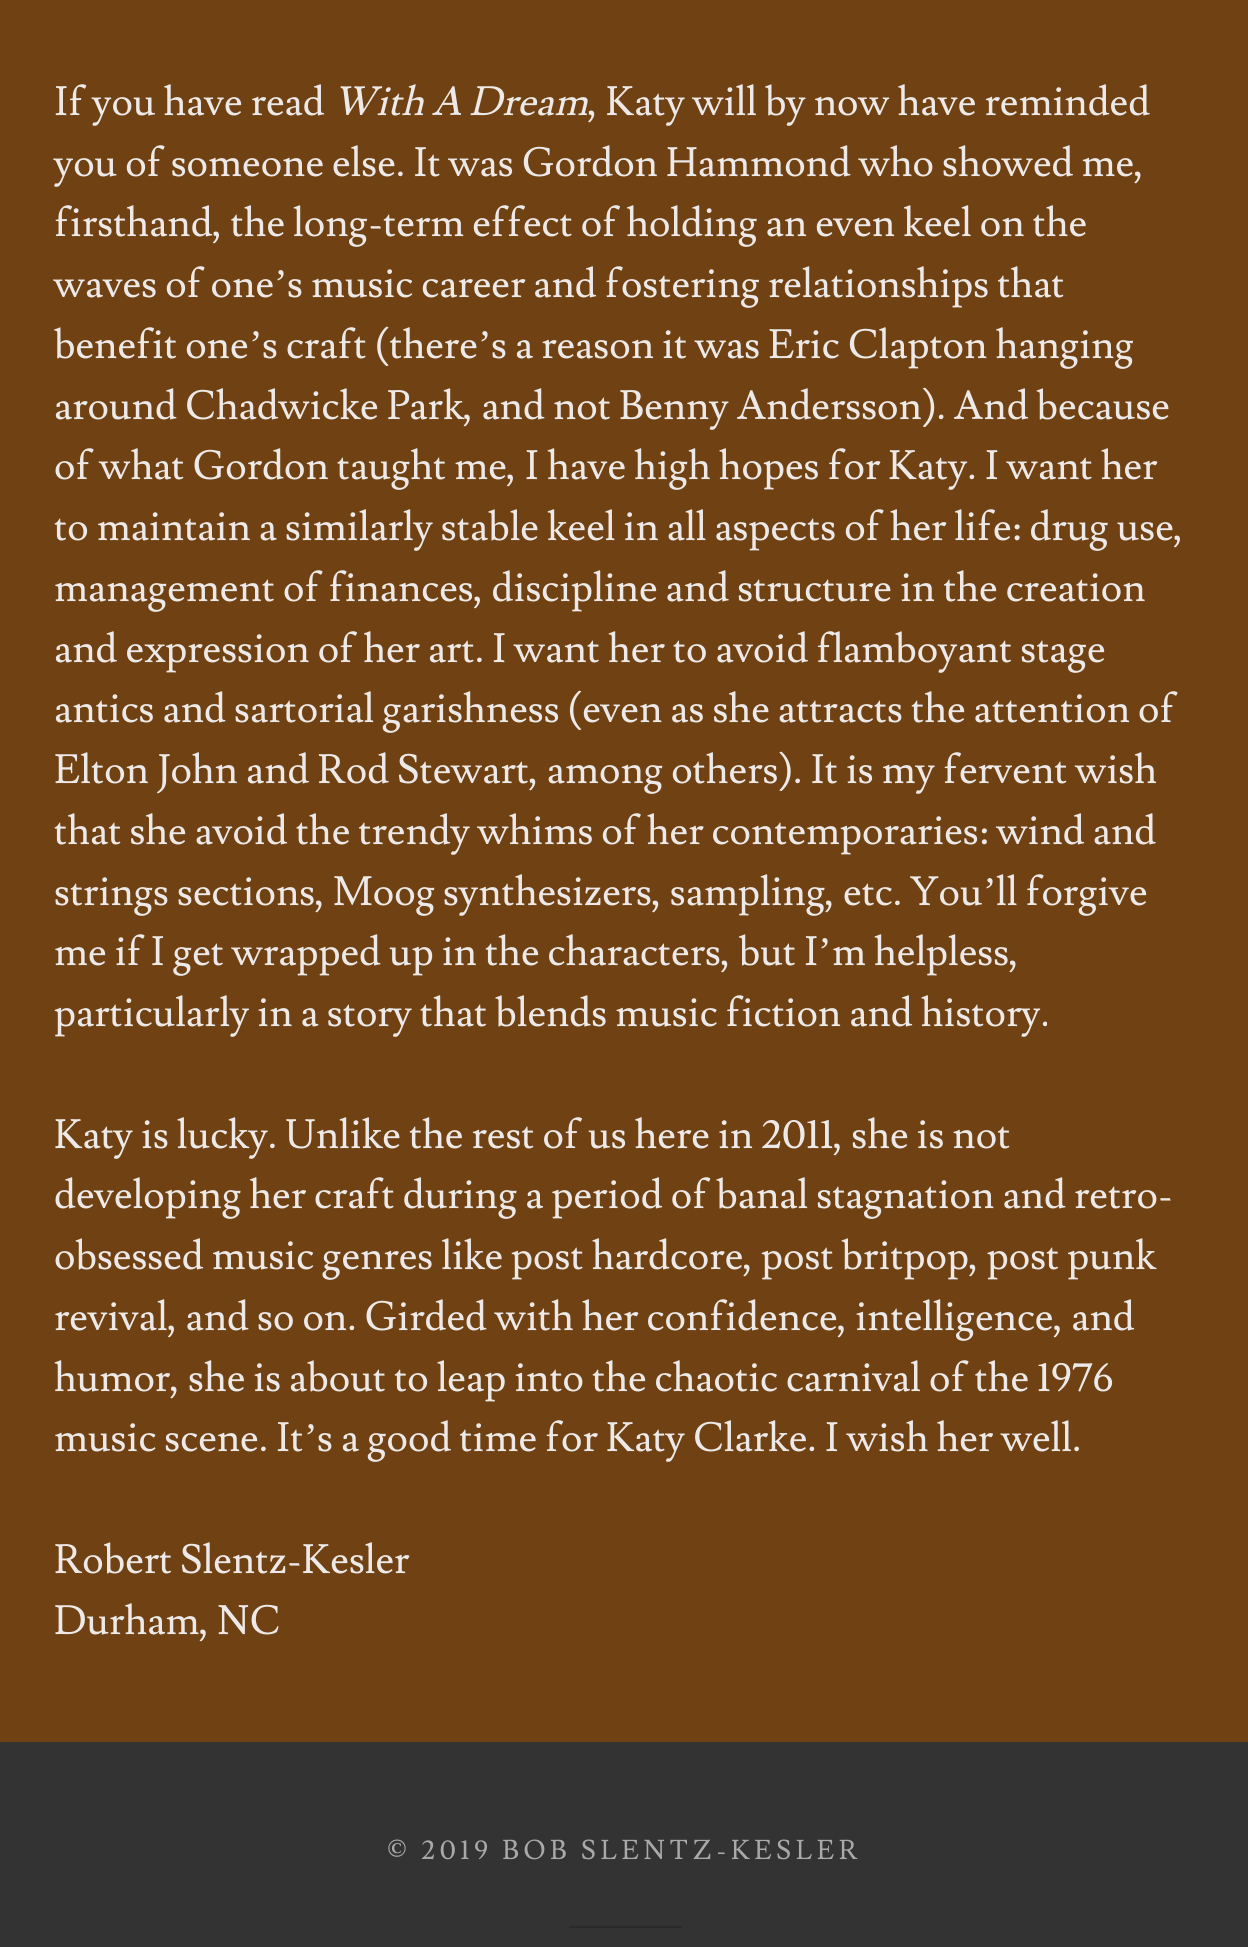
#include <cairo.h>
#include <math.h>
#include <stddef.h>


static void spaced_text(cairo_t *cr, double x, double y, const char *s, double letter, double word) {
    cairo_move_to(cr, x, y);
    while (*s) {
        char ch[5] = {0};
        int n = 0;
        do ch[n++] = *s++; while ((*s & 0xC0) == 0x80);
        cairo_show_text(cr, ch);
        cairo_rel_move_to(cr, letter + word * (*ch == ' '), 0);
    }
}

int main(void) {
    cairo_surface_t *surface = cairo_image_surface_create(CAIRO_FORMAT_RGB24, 1248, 1947);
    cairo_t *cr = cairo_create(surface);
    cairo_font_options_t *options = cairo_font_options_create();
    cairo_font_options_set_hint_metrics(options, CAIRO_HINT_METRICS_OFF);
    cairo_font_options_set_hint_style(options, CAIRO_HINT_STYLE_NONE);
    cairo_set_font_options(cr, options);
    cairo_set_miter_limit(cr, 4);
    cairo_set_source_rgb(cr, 0.2, 0.2, 0.2);
    cairo_paint(cr);
    cairo_set_source_rgb(cr, 0.439, 0.259, 0.078);
    cairo_rectangle(cr, 0, 0, 1248, 1742);
    cairo_fill(cr);
    cairo_select_font_face(cr, "Lusitana", CAIRO_FONT_SLANT_NORMAL, CAIRO_FONT_WEIGHT_NORMAL);
    cairo_set_font_size(cr, 40.5);
    cairo_set_source_rgb(cr, 0.925, 0.914, 0.91);
    cairo_move_to(cr, 54, 115);
    cairo_show_text(cr, "If you have read");
    cairo_select_font_face(cr, "Lusitana", CAIRO_FONT_SLANT_ITALIC, CAIRO_FONT_WEIGHT_NORMAL);
    cairo_move_to(cr, 333, 115);
    cairo_show_text(cr, "With A Dream");
    cairo_select_font_face(cr, "Lusitana", CAIRO_FONT_SLANT_NORMAL, CAIRO_FONT_WEIGHT_NORMAL);
    cairo_move_to(cr, 588, 115);
    cairo_show_text(cr, ", Katy will by now have reminded");
    cairo_move_to(cr, 54, 176);
    cairo_show_text(cr, "you of someone else. It was Gordon Hammond who showed me,");
    cairo_move_to(cr, 54, 236);
    cairo_show_text(cr, "firsthand, the long-term effect of holding an even keel on the");
    cairo_move_to(cr, 54, 297);
    cairo_show_text(cr, "waves of one");
    cairo_select_font_face(cr, "Liberation Serif", CAIRO_FONT_SLANT_NORMAL, CAIRO_FONT_WEIGHT_NORMAL);
    cairo_move_to(cr, 274, 297);
    cairo_show_text(cr, "’");
    cairo_select_font_face(cr, "Lusitana", CAIRO_FONT_SLANT_NORMAL, CAIRO_FONT_WEIGHT_NORMAL);
    cairo_move_to(cr, 287, 297);
    cairo_show_text(cr, "s music career and fostering relationships that");
    cairo_move_to(cr, 54, 358);
    cairo_show_text(cr, "benefit one");
    cairo_select_font_face(cr, "Liberation Serif", CAIRO_FONT_SLANT_NORMAL, CAIRO_FONT_WEIGHT_NORMAL);
    cairo_move_to(cr, 249, 358);
    cairo_show_text(cr, "’");
    cairo_select_font_face(cr, "Lusitana", CAIRO_FONT_SLANT_NORMAL, CAIRO_FONT_WEIGHT_NORMAL);
    cairo_move_to(cr, 262, 358);
    cairo_show_text(cr, "s craft (there");
    cairo_select_font_face(cr, "Liberation Serif", CAIRO_FONT_SLANT_NORMAL, CAIRO_FONT_WEIGHT_NORMAL);
    cairo_move_to(cr, 478, 358);
    cairo_show_text(cr, "’");
    cairo_select_font_face(cr, "Lusitana", CAIRO_FONT_SLANT_NORMAL, CAIRO_FONT_WEIGHT_NORMAL);
    cairo_move_to(cr, 491, 358);
    cairo_show_text(cr, "s a reason it was Eric Clapton hanging");
    cairo_move_to(cr, 54, 419);
    cairo_show_text(cr, "around Chadwicke Park, and not Benny Andersson). And because");
    cairo_move_to(cr, 54, 479);
    cairo_show_text(cr, "of what Gordon taught me, I have high hopes for Katy. I want her");
    cairo_move_to(cr, 54, 540);
    cairo_show_text(cr, "to maintain a similarly stable keel in all aspects of her life: drug use,");
    cairo_move_to(cr, 54, 601);
    cairo_show_text(cr, "management of finances, discipline and structure in the creation");
    cairo_move_to(cr, 54, 662);
    cairo_show_text(cr, "and expression of her art. I want her to avoid flamboyant stage");
    cairo_move_to(cr, 54, 722);
    cairo_show_text(cr, "antics and sartorial garishness (even as she attracts the attention of");
    cairo_move_to(cr, 54, 783);
    cairo_show_text(cr, "Elton John and Rod Stewart, among others). It is my fervent wish");
    cairo_move_to(cr, 54, 844);
    cairo_show_text(cr, "that she avoid the trendy whims of her contemporaries: wind and");
    cairo_move_to(cr, 54, 905);
    cairo_show_text(cr, "strings sections, Moog synthesizers, sampling, etc. You");
    cairo_select_font_face(cr, "Liberation Serif", CAIRO_FONT_SLANT_NORMAL, CAIRO_FONT_WEIGHT_NORMAL);
    cairo_move_to(cr, 983, 905);
    cairo_show_text(cr, "’");
    cairo_select_font_face(cr, "Lusitana", CAIRO_FONT_SLANT_NORMAL, CAIRO_FONT_WEIGHT_NORMAL);
    cairo_move_to(cr, 996, 905);
    cairo_show_text(cr, "ll forgive");
    cairo_move_to(cr, 54, 965);
    cairo_show_text(cr, "me if I get wrapped up in the characters, but I");
    cairo_select_font_face(cr, "Liberation Serif", CAIRO_FONT_SLANT_NORMAL, CAIRO_FONT_WEIGHT_NORMAL);
    cairo_move_to(cr, 818, 965);
    cairo_show_text(cr, "’");
    cairo_select_font_face(cr, "Lusitana", CAIRO_FONT_SLANT_NORMAL, CAIRO_FONT_WEIGHT_NORMAL);
    cairo_move_to(cr, 832, 965);
    cairo_show_text(cr, "m helpless,");
    cairo_move_to(cr, 54, 1026);
    cairo_show_text(cr, "particularly in a story that blends music fiction and history.");
    cairo_move_to(cr, 54, 1148);
    cairo_show_text(cr, "Katy is lucky. Unlike the rest of us here in 2011, she is not");
    cairo_move_to(cr, 54, 1208);
    cairo_show_text(cr, "developing her craft during a period of banal stagnation and retro-");
    cairo_move_to(cr, 54, 1269);
    cairo_show_text(cr, "obsessed music genres like post hardcore, post britpop, post punk");
    cairo_move_to(cr, 54, 1330);
    cairo_show_text(cr, "revival, and so on. Girded with her confidence, intelligence, and");
    cairo_move_to(cr, 54, 1391);
    cairo_show_text(cr, "humor, she is about to leap into the chaotic carnival of the 1976");
    cairo_move_to(cr, 54, 1451);
    cairo_show_text(cr, "music scene. It");
    cairo_select_font_face(cr, "Liberation Serif", CAIRO_FONT_SLANT_NORMAL, CAIRO_FONT_WEIGHT_NORMAL);
    cairo_move_to(cr, 304, 1451);
    cairo_show_text(cr, "’");
    cairo_select_font_face(cr, "Lusitana", CAIRO_FONT_SLANT_NORMAL, CAIRO_FONT_WEIGHT_NORMAL);
    cairo_move_to(cr, 317, 1451);
    cairo_show_text(cr, "s a good time for Katy Clarke. I wish her well.");
    cairo_move_to(cr, 54, 1573);
    cairo_show_text(cr, "Robert Slentz-Kesler");
    cairo_move_to(cr, 54, 1634);
    cairo_show_text(cr, "Durham, NC");
    cairo_set_font_size(cr, 27);
    cairo_set_source_rgb(cr, 0.663, 0.663, 0.663);
    spaced_text(cr, 387, 1859, "© 2019 BOB SLENTZ-KESLER", 4.5, 0);
    cairo_set_source_rgb(cr, 0.165, 0.165, 0.165);
    cairo_rectangle(cr, 569, 1926, 113, 2);
    cairo_fill(cr);
    cairo_surface_write_to_png(surface, "page.png");
    cairo_font_options_destroy(options);
    cairo_destroy(cr);
    cairo_surface_destroy(surface);
    return 0;
}
